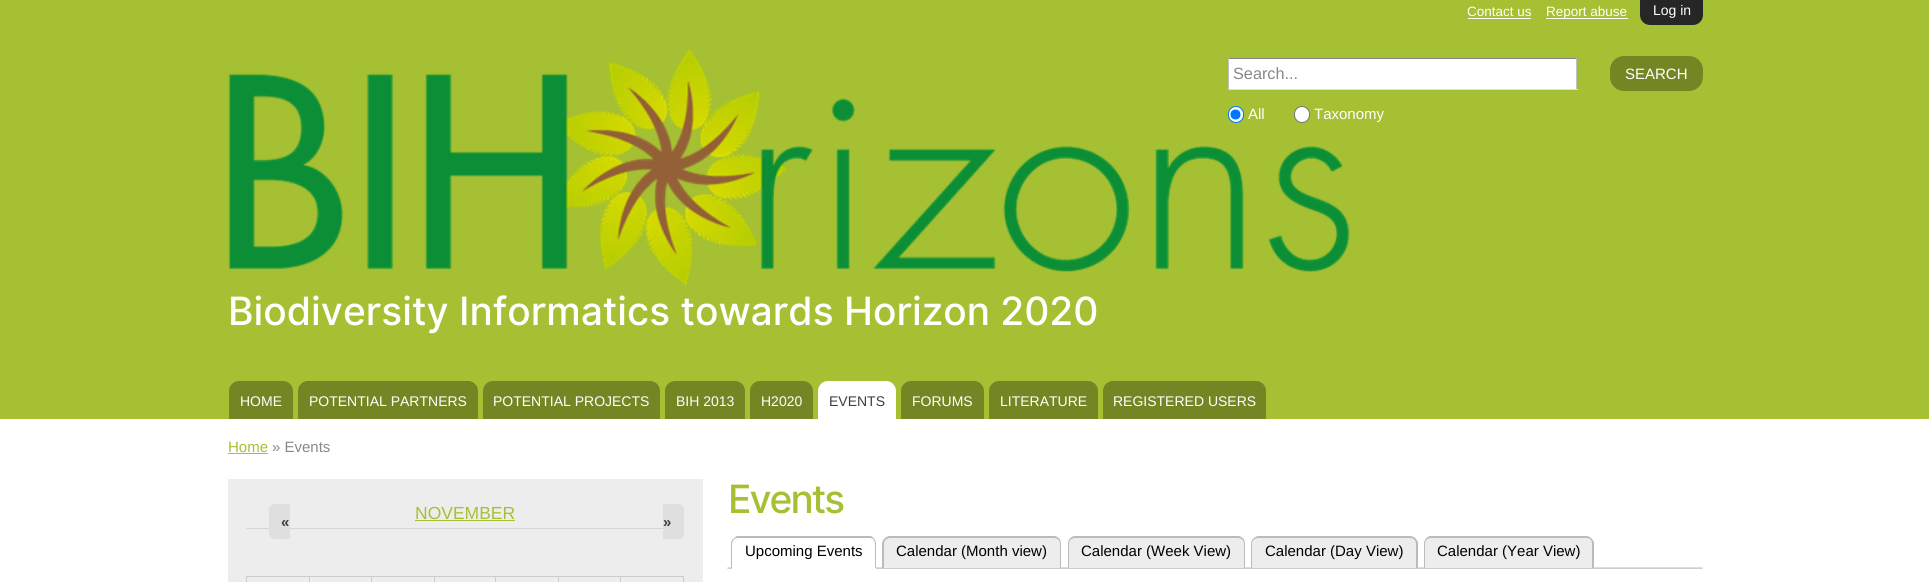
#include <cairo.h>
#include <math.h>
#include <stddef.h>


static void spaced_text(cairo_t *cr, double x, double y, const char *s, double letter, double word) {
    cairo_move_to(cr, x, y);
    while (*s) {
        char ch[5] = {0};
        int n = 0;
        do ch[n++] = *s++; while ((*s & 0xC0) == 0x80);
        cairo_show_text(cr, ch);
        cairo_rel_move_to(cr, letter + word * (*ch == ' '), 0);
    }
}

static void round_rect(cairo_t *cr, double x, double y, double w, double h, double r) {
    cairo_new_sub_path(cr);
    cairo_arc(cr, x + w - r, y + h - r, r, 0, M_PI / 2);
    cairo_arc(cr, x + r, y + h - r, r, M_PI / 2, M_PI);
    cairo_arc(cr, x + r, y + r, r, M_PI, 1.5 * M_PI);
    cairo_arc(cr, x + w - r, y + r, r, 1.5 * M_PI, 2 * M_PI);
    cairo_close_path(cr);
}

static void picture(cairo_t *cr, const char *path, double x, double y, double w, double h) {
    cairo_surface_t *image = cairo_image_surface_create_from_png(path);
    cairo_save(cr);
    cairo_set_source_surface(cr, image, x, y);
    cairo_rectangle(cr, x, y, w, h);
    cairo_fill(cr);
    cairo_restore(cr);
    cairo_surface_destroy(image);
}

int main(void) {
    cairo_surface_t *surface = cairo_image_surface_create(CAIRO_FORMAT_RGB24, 1929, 582);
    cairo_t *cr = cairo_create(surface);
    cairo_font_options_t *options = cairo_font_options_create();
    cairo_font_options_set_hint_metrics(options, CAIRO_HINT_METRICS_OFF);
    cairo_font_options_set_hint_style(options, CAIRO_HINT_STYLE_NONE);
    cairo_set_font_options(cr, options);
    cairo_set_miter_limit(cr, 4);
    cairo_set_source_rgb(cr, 1, 1, 1);
    cairo_paint(cr);
    cairo_set_source_rgb(cr, 0.647, 0.753, 0.2);
    cairo_rectangle(cr, 0, 0, 1929, 419);
    cairo_fill(cr);
    cairo_set_source_rgb(cr, 0.149, 0.149, 0.149);
    cairo_new_path(cr);
    cairo_move_to(cr, 1640, 0);
    cairo_line_to(cr, 1703, 0);
    cairo_line_to(cr, 1703, 15);
    cairo_curve_to(cr, 1703, 20.5, 1698.5, 25, 1693, 25);
    cairo_line_to(cr, 1650, 25);
    cairo_curve_to(cr, 1644.5, 25, 1640, 20.5, 1640, 15);
    cairo_close_path(cr);
    cairo_fill(cr);
    cairo_select_font_face(cr, "Liberation Sans", CAIRO_FONT_SLANT_NORMAL, CAIRO_FONT_WEIGHT_NORMAL);
    cairo_set_font_size(cr, 14);
    cairo_set_source_rgb(cr, 1, 1, 1);
    cairo_move_to(cr, 1653, 15);
    cairo_show_text(cr, "Log in");
    cairo_set_font_size(cr, 13.5);
    cairo_move_to(cr, 1467, 16);
    cairo_show_text(cr, "Contact us");
    cairo_rectangle(cr, 1468, 18, 63, 1);
    cairo_fill(cr);
    cairo_rectangle(cr, 1546, 18, 82, 1);
    cairo_fill(cr);
    cairo_move_to(cr, 1546, 16);
    cairo_show_text(cr, "Report abuse");
    picture(cr, "img1.png", 228, 48, 1122, 238);
    cairo_rectangle(cr, 1229, 59, 347, 30);
    cairo_fill(cr);
    cairo_set_source_rgb(cr, 0.518, 0.518, 0.518);
    cairo_rectangle(cr, 1228, 58, 350, 1);
    cairo_fill(cr);
    cairo_set_source_rgb(cr, 0.757, 0.757, 0.757);
    cairo_rectangle(cr, 1576, 58, 1, 32);
    cairo_fill(cr);
    cairo_set_source_rgb(cr, 0.882, 0.882, 0.882);
    cairo_rectangle(cr, 1228, 89, 350, 1);
    cairo_fill(cr);
    cairo_set_source_rgb(cr, 0.757, 0.757, 0.757);
    cairo_rectangle(cr, 1228, 58, 1, 32);
    cairo_fill(cr);
    cairo_set_font_size(cr, 16.25);
    cairo_set_source_rgb(cr, 0.533, 0.533, 0.533);
    cairo_move_to(cr, 1233, 79);
    cairo_show_text(cr, "Search...");
    cairo_set_source_rgb(cr, 0.455, 0.525, 0.141);
    round_rect(cr, 1610, 56, 93, 35, 14);
    cairo_fill(cr);
    cairo_set_font_size(cr, 15);
    cairo_set_source_rgb(cr, 1, 1, 1);
    cairo_move_to(cr, 1625, 79);
    cairo_show_text(cr, "SEARCH");
    round_rect(cr, 1228.5, 106.5, 15, 16, 7.5);
    cairo_fill_preserve(cr);
    cairo_set_source_rgb(cr, 0, 0.459, 1);
    cairo_set_line_width(cr, 1);
    cairo_stroke(cr);
    cairo_arc(cr, 1235.5, 114.5, 5, 0, 2 * M_PI);
    cairo_fill(cr);
    cairo_set_source_rgb(cr, 1, 1, 1);
    cairo_move_to(cr, 1248, 119);
    cairo_show_text(cr, "All");
    round_rect(cr, 1294.5, 106.5, 15, 16, 7.5);
    cairo_fill_preserve(cr);
    cairo_set_source_rgb(cr, 0.463, 0.463, 0.463);
    cairo_stroke(cr);
    cairo_set_source_rgb(cr, 1, 1, 1);
    cairo_move_to(cr, 1314, 119);
    cairo_show_text(cr, "Taxonomy");
    cairo_select_font_face(cr, "Inter Medium", CAIRO_FONT_SLANT_NORMAL, CAIRO_FONT_WEIGHT_NORMAL);
    cairo_set_font_size(cr, 39);
    cairo_move_to(cr, 228, 325);
    cairo_show_text(cr, "Biodiversity Informatics towards Horizon 2020");
    cairo_set_source_rgb(cr, 0.455, 0.525, 0.141);
    cairo_new_path(cr);
    cairo_move_to(cr, 239, 381);
    cairo_line_to(cr, 283, 381);
    cairo_curve_to(cr, 288.5, 381, 293, 385.5, 293, 391);
    cairo_line_to(cr, 293, 419);
    cairo_line_to(cr, 229, 419);
    cairo_line_to(cr, 229, 391);
    cairo_curve_to(cr, 229, 385.5, 233.5, 381, 239, 381);
    cairo_close_path(cr);
    cairo_fill(cr);
    cairo_select_font_face(cr, "Liberation Sans", CAIRO_FONT_SLANT_NORMAL, CAIRO_FONT_WEIGHT_NORMAL);
    cairo_set_font_size(cr, 14);
    cairo_set_source_rgb(cr, 1, 1, 1);
    cairo_move_to(cr, 240, 406);
    cairo_show_text(cr, "HOME");
    cairo_set_source_rgb(cr, 0.455, 0.525, 0.141);
    cairo_new_path(cr);
    cairo_move_to(cr, 308, 381);
    cairo_line_to(cr, 468, 381);
    cairo_curve_to(cr, 473.5, 381, 478, 385.5, 478, 391);
    cairo_line_to(cr, 478, 419);
    cairo_line_to(cr, 298, 419);
    cairo_line_to(cr, 298, 391);
    cairo_curve_to(cr, 298, 385.5, 302.5, 381, 308, 381);
    cairo_close_path(cr);
    cairo_fill(cr);
    cairo_set_source_rgb(cr, 1, 1, 1);
    cairo_move_to(cr, 309, 406);
    cairo_show_text(cr, "POTENTIAL PARTNERS");
    cairo_set_source_rgb(cr, 0.455, 0.525, 0.141);
    cairo_new_path(cr);
    cairo_move_to(cr, 493, 381);
    cairo_line_to(cr, 650, 381);
    cairo_curve_to(cr, 655.5, 381, 660, 385.5, 660, 391);
    cairo_line_to(cr, 660, 419);
    cairo_line_to(cr, 483, 419);
    cairo_line_to(cr, 483, 391);
    cairo_curve_to(cr, 483, 385.5, 487.5, 381, 493, 381);
    cairo_close_path(cr);
    cairo_fill(cr);
    cairo_set_source_rgb(cr, 1, 1, 1);
    cairo_move_to(cr, 493, 406);
    cairo_show_text(cr, "POTENTIAL PROJECTS");
    cairo_set_source_rgb(cr, 0.455, 0.525, 0.141);
    cairo_new_path(cr);
    cairo_move_to(cr, 675, 381);
    cairo_line_to(cr, 735, 381);
    cairo_curve_to(cr, 740.5, 381, 745, 385.5, 745, 391);
    cairo_line_to(cr, 745, 419);
    cairo_line_to(cr, 665, 419);
    cairo_line_to(cr, 665, 391);
    cairo_curve_to(cr, 665, 385.5, 669.5, 381, 675, 381);
    cairo_close_path(cr);
    cairo_fill(cr);
    cairo_set_source_rgb(cr, 1, 1, 1);
    cairo_move_to(cr, 676, 406);
    cairo_show_text(cr, "BIH 2013");
    cairo_set_source_rgb(cr, 0.455, 0.525, 0.141);
    cairo_new_path(cr);
    cairo_move_to(cr, 760, 381);
    cairo_line_to(cr, 803, 381);
    cairo_curve_to(cr, 808.5, 381, 813, 385.5, 813, 391);
    cairo_line_to(cr, 813, 419);
    cairo_line_to(cr, 750, 419);
    cairo_line_to(cr, 750, 391);
    cairo_curve_to(cr, 750, 385.5, 754.5, 381, 760, 381);
    cairo_close_path(cr);
    cairo_fill(cr);
    cairo_set_source_rgb(cr, 1, 1, 1);
    cairo_move_to(cr, 761, 406);
    cairo_show_text(cr, "H2020");
    cairo_new_path(cr);
    cairo_move_to(cr, 828, 381);
    cairo_line_to(cr, 886, 381);
    cairo_curve_to(cr, 891.5, 381, 896, 385.5, 896, 391);
    cairo_line_to(cr, 896, 419);
    cairo_line_to(cr, 818, 419);
    cairo_line_to(cr, 818, 391);
    cairo_curve_to(cr, 818, 385.5, 822.5, 381, 828, 381);
    cairo_close_path(cr);
    cairo_fill(cr);
    cairo_set_source_rgb(cr, 0.243, 0.243, 0.243);
    cairo_move_to(cr, 829, 406);
    cairo_show_text(cr, "EVENTS");
    cairo_set_source_rgb(cr, 0.455, 0.525, 0.141);
    cairo_new_path(cr);
    cairo_move_to(cr, 911, 381);
    cairo_line_to(cr, 974, 381);
    cairo_curve_to(cr, 979.5, 381, 984, 385.5, 984, 391);
    cairo_line_to(cr, 984, 419);
    cairo_line_to(cr, 901, 419);
    cairo_line_to(cr, 901, 391);
    cairo_curve_to(cr, 901, 385.5, 905.5, 381, 911, 381);
    cairo_close_path(cr);
    cairo_fill(cr);
    cairo_set_source_rgb(cr, 1, 1, 1);
    cairo_move_to(cr, 912, 406);
    cairo_show_text(cr, "FORUMS");
    cairo_set_source_rgb(cr, 0.455, 0.525, 0.141);
    cairo_new_path(cr);
    cairo_move_to(cr, 999, 381);
    cairo_line_to(cr, 1088, 381);
    cairo_curve_to(cr, 1093.5, 381, 1098, 385.5, 1098, 391);
    cairo_line_to(cr, 1098, 419);
    cairo_line_to(cr, 989, 419);
    cairo_line_to(cr, 989, 391);
    cairo_curve_to(cr, 989, 385.5, 993.5, 381, 999, 381);
    cairo_close_path(cr);
    cairo_fill(cr);
    cairo_set_source_rgb(cr, 1, 1, 1);
    cairo_move_to(cr, 1000, 406);
    cairo_show_text(cr, "LITERATURE");
    cairo_set_source_rgb(cr, 0.455, 0.525, 0.141);
    cairo_new_path(cr);
    cairo_move_to(cr, 1113, 381);
    cairo_line_to(cr, 1256, 381);
    cairo_curve_to(cr, 1261.5, 381, 1266, 385.5, 1266, 391);
    cairo_line_to(cr, 1266, 419);
    cairo_line_to(cr, 1103, 419);
    cairo_line_to(cr, 1103, 391);
    cairo_curve_to(cr, 1103, 385.5, 1107.5, 381, 1113, 381);
    cairo_close_path(cr);
    cairo_fill(cr);
    cairo_set_source_rgb(cr, 1, 1, 1);
    cairo_move_to(cr, 1113, 406);
    cairo_show_text(cr, "REGISTERED USERS");
    cairo_set_font_size(cr, 15);
    cairo_set_source_rgb(cr, 0.647, 0.753, 0.2);
    cairo_move_to(cr, 228, 452);
    cairo_show_text(cr, "Home");
    cairo_rectangle(cr, 228, 453, 40, 1);
    cairo_fill(cr);
    cairo_set_source_rgb(cr, 0.533, 0.533, 0.533);
    cairo_move_to(cr, 272, 452);
    cairo_show_text(cr, "» Events");
    cairo_set_source_rgb(cr, 0.929, 0.929, 0.929);
    cairo_rectangle(cr, 228, 479, 475, 103);
    cairo_fill(cr);
    cairo_set_source_rgb(cr, 0.839, 0.839, 0.839);
    cairo_rectangle(cr, 246, 528, 417, 1);
    cairo_fill(cr);
    cairo_set_font_size(cr, 17.5);
    cairo_set_source_rgb(cr, 0.647, 0.753, 0.2);
    cairo_move_to(cr, 415, 519);
    cairo_show_text(cr, "NOVEMBER");
    cairo_rectangle(cr, 415, 520, 100, 1);
    cairo_fill(cr);
    cairo_set_source_rgb(cr, 0.875, 0.875, 0.875);
    cairo_new_path(cr);
    cairo_move_to(cr, 275, 504);
    cairo_line_to(cr, 290, 504);
    cairo_line_to(cr, 290, 539);
    cairo_line_to(cr, 275, 539);
    cairo_curve_to(cr, 271.5, 539, 269, 536.5, 269, 533);
    cairo_line_to(cr, 269, 510);
    cairo_curve_to(cr, 269, 506.5, 271.5, 504, 275, 504);
    cairo_close_path(cr);
    cairo_fill(cr);
    cairo_select_font_face(cr, "Liberation Sans", CAIRO_FONT_SLANT_NORMAL, CAIRO_FONT_WEIGHT_BOLD);
    cairo_set_font_size(cr, 15);
    cairo_set_source_rgb(cr, 0.243, 0.243, 0.243);
    cairo_move_to(cr, 281, 527);
    cairo_show_text(cr, "«");
    cairo_set_source_rgb(cr, 0.875, 0.875, 0.875);
    cairo_new_path(cr);
    cairo_move_to(cr, 663, 504);
    cairo_line_to(cr, 678, 504);
    cairo_curve_to(cr, 681.5, 504, 684, 506.5, 684, 510);
    cairo_line_to(cr, 684, 533);
    cairo_curve_to(cr, 684, 536.5, 681.5, 539, 678, 539);
    cairo_line_to(cr, 663, 539);
    cairo_close_path(cr);
    cairo_fill(cr);
    cairo_set_source_rgb(cr, 0.243, 0.243, 0.243);
    cairo_move_to(cr, 663, 527);
    cairo_show_text(cr, "»");
    cairo_set_source_rgb(cr, 0.8, 0.8, 0.8);
    cairo_rectangle(cr, 620, 576, 64, 1);
    cairo_fill(cr);
    cairo_rectangle(cr, 620, 576, 1, 6);
    cairo_fill(cr);
    cairo_rectangle(cr, 558, 576, 63, 1);
    cairo_fill(cr);
    cairo_rectangle(cr, 558, 576, 1, 6);
    cairo_fill(cr);
    cairo_rectangle(cr, 495, 576, 64, 1);
    cairo_fill(cr);
    cairo_rectangle(cr, 495, 576, 1, 6);
    cairo_fill(cr);
    cairo_rectangle(cr, 434, 576, 62, 1);
    cairo_fill(cr);
    cairo_rectangle(cr, 434, 576, 1, 6);
    cairo_fill(cr);
    cairo_rectangle(cr, 371, 576, 64, 1);
    cairo_fill(cr);
    cairo_rectangle(cr, 371, 576, 1, 6);
    cairo_fill(cr);
    cairo_rectangle(cr, 309, 576, 64, 1);
    cairo_fill(cr);
    cairo_rectangle(cr, 309, 576, 1, 6);
    cairo_fill(cr);
    cairo_rectangle(cr, 246, 576, 64, 1);
    cairo_fill(cr);
    cairo_rectangle(cr, 246, 576, 1, 6);
    cairo_fill(cr);
    cairo_rectangle(cr, 683, 576, 1, 6);
    cairo_fill(cr);
    cairo_select_font_face(cr, "Inter Medium", CAIRO_FONT_SLANT_NORMAL, CAIRO_FONT_WEIGHT_NORMAL);
    cairo_set_font_size(cr, 39);
    cairo_set_source_rgb(cr, 0.647, 0.753, 0.2);
    spaced_text(cr, 728, 513, "Events", -2, 0);
    picture(cr, "img2.png", 727, 567, 976, 2);
    cairo_set_source_rgb(cr, 1, 1, 1);
    cairo_new_path(cr);
    cairo_move_to(cr, 739, 536);
    cairo_line_to(cr, 868, 536);
    cairo_curve_to(cr, 872.5, 536, 876, 539.5, 876, 544);
    cairo_line_to(cr, 876, 569);
    cairo_line_to(cr, 731, 569);
    cairo_line_to(cr, 731, 544);
    cairo_curve_to(cr, 731, 539.5, 734.5, 536, 739, 536);
    cairo_close_path(cr);
    cairo_fill(cr);
    cairo_set_source_rgb(cr, 0.733, 0.733, 0.733);
    cairo_new_path(cr);
    cairo_move_to(cr, 739, 538);
    cairo_curve_to(cr, 737, 538, 736, 538, 734, 539);
    cairo_line_to(cr, 734, 538);
    cairo_line_to(cr, 737, 536);
    cairo_line_to(cr, 871, 536);
    cairo_line_to(cr, 874, 538);
    cairo_line_to(cr, 873, 539);
    cairo_curve_to(cr, 872, 538, 870, 538, 869, 538);
    cairo_close_path(cr);
    cairo_fill(cr);
    cairo_new_path(cr);
    cairo_move_to(cr, 874, 538.5);
    cairo_curve_to(cr, 875, 540, 876, 542, 876, 544);
    cairo_line_to(cr, 876, 568.5);
    cairo_line_to(cr, 875, 567.5);
    cairo_line_to(cr, 875, 544);
    cairo_curve_to(cr, 875, 542, 874, 540.5, 873, 539.5);
    cairo_close_path(cr);
    cairo_fill(cr);
    cairo_new_path(cr);
    cairo_move_to(cr, 731, 569);
    cairo_line_to(cr, 731, 542);
    cairo_curve_to(cr, 731.5, 541, 732.5, 539.5, 733.5, 538.5);
    cairo_line_to(cr, 734.5, 539.5);
    cairo_curve_to(cr, 733, 540.5, 732, 542, 732, 544);
    cairo_line_to(cr, 732, 568);
    cairo_close_path(cr);
    cairo_fill(cr);
    cairo_select_font_face(cr, "Liberation Sans", CAIRO_FONT_SLANT_NORMAL, CAIRO_FONT_WEIGHT_NORMAL);
    cairo_set_font_size(cr, 15);
    cairo_set_source_rgb(cr, 0, 0, 0);
    cairo_move_to(cr, 745, 556);
    cairo_show_text(cr, "Upcoming Events");
    cairo_set_source_rgb(cr, 0.929, 0.929, 0.929);
    cairo_new_path(cr);
    cairo_move_to(cr, 891, 536);
    cairo_line_to(cr, 1053, 536);
    cairo_curve_to(cr, 1057.5, 536, 1061, 539.5, 1061, 544);
    cairo_line_to(cr, 1061, 568);
    cairo_line_to(cr, 883, 568);
    cairo_line_to(cr, 883, 544);
    cairo_curve_to(cr, 883, 539.5, 886.5, 536, 891, 536);
    cairo_close_path(cr);
    cairo_fill(cr);
    cairo_set_source_rgb(cr, 0.733, 0.733, 0.733);
    cairo_set_fill_rule(cr, CAIRO_FILL_RULE_EVEN_ODD);
    cairo_new_path(cr);
    cairo_move_to(cr, 890, 536);
    cairo_line_to(cr, 1054, 536);
    cairo_curve_to(cr, 1058, 536, 1061, 540, 1061, 544);
    cairo_line_to(cr, 1061, 568);
    cairo_line_to(cr, 882, 568);
    cairo_line_to(cr, 882, 544);
    cairo_curve_to(cr, 882, 540, 886, 536, 890, 536);
    cairo_close_path(cr);
    cairo_move_to(cr, 890, 538);
    cairo_line_to(cr, 1054, 538);
    cairo_curve_to(cr, 1057, 538, 1060, 540, 1060, 544);
    cairo_line_to(cr, 1060, 568);
    cairo_line_to(cr, 884, 568);
    cairo_line_to(cr, 884, 544);
    cairo_curve_to(cr, 884, 540, 887, 538, 890, 538);
    cairo_close_path(cr);
    cairo_fill(cr);
    cairo_set_source_rgb(cr, 0, 0, 0);
    cairo_move_to(cr, 896, 556);
    cairo_show_text(cr, "Calendar (Month view)");
    cairo_set_source_rgb(cr, 0.929, 0.929, 0.929);
    cairo_new_path(cr);
    cairo_move_to(cr, 1076, 536);
    cairo_line_to(cr, 1237, 536);
    cairo_curve_to(cr, 1241.5, 536, 1245, 539.5, 1245, 544);
    cairo_line_to(cr, 1245, 568);
    cairo_line_to(cr, 1068, 568);
    cairo_line_to(cr, 1068, 544);
    cairo_curve_to(cr, 1068, 539.5, 1071.5, 536, 1076, 536);
    cairo_close_path(cr);
    cairo_fill(cr);
    cairo_set_source_rgb(cr, 0.733, 0.733, 0.733);
    cairo_new_path(cr);
    cairo_move_to(cr, 1075, 536);
    cairo_line_to(cr, 1238, 536);
    cairo_curve_to(cr, 1242, 536, 1245, 540, 1245, 544);
    cairo_line_to(cr, 1245, 568);
    cairo_line_to(cr, 1068, 568);
    cairo_line_to(cr, 1068, 544);
    cairo_curve_to(cr, 1068, 540, 1071, 536, 1075, 536);
    cairo_close_path(cr);
    cairo_move_to(cr, 1075, 538);
    cairo_line_to(cr, 1238, 538);
    cairo_curve_to(cr, 1241, 538, 1244, 540, 1244, 544);
    cairo_line_to(cr, 1244, 568);
    cairo_line_to(cr, 1069, 568);
    cairo_line_to(cr, 1069, 544);
    cairo_curve_to(cr, 1069, 540, 1072, 538, 1075, 538);
    cairo_close_path(cr);
    cairo_fill(cr);
    cairo_set_source_rgb(cr, 0, 0, 0);
    cairo_move_to(cr, 1081, 556);
    cairo_show_text(cr, "Calendar (Week View)");
    cairo_set_source_rgb(cr, 0.929, 0.929, 0.929);
    cairo_new_path(cr);
    cairo_move_to(cr, 1259, 536);
    cairo_line_to(cr, 1410, 536);
    cairo_curve_to(cr, 1414.5, 536, 1418, 539.5, 1418, 544);
    cairo_line_to(cr, 1418, 568);
    cairo_line_to(cr, 1251, 568);
    cairo_line_to(cr, 1251, 544);
    cairo_curve_to(cr, 1251, 539.5, 1254.5, 536, 1259, 536);
    cairo_close_path(cr);
    cairo_fill(cr);
    cairo_set_source_rgb(cr, 0.733, 0.733, 0.733);
    cairo_new_path(cr);
    cairo_move_to(cr, 1259, 536);
    cairo_line_to(cr, 1410, 536);
    cairo_curve_to(cr, 1414, 536, 1418, 540, 1418, 544);
    cairo_line_to(cr, 1418, 568);
    cairo_line_to(cr, 1251, 568);
    cairo_line_to(cr, 1251, 544);
    cairo_curve_to(cr, 1251, 540, 1255, 536, 1259, 536);
    cairo_close_path(cr);
    cairo_move_to(cr, 1259, 538);
    cairo_line_to(cr, 1410, 538);
    cairo_curve_to(cr, 1413, 538, 1416, 540, 1416, 544);
    cairo_line_to(cr, 1416, 568);
    cairo_line_to(cr, 1252, 568);
    cairo_line_to(cr, 1252, 544);
    cairo_curve_to(cr, 1252, 540, 1255, 538, 1259, 538);
    cairo_close_path(cr);
    cairo_fill(cr);
    cairo_set_source_rgb(cr, 0, 0, 0);
    cairo_move_to(cr, 1265, 556);
    cairo_show_text(cr, "Calendar (Day View)");
    cairo_set_source_rgb(cr, 0.929, 0.929, 0.929);
    cairo_new_path(cr);
    cairo_move_to(cr, 1432, 536);
    cairo_line_to(cr, 1586, 536);
    cairo_curve_to(cr, 1590.5, 536, 1594, 539.5, 1594, 544);
    cairo_line_to(cr, 1594, 568);
    cairo_line_to(cr, 1424, 568);
    cairo_line_to(cr, 1424, 544);
    cairo_curve_to(cr, 1424, 539.5, 1427.5, 536, 1432, 536);
    cairo_close_path(cr);
    cairo_fill(cr);
    cairo_set_source_rgb(cr, 0.733, 0.733, 0.733);
    cairo_new_path(cr);
    cairo_move_to(cr, 1431, 536);
    cairo_line_to(cr, 1586, 536);
    cairo_curve_to(cr, 1590, 536, 1594, 540, 1594, 544);
    cairo_line_to(cr, 1594, 568);
    cairo_line_to(cr, 1424, 568);
    cairo_line_to(cr, 1424, 544);
    cairo_curve_to(cr, 1424, 540, 1427, 536, 1431, 536);
    cairo_close_path(cr);
    cairo_move_to(cr, 1431, 538);
    cairo_line_to(cr, 1586, 538);
    cairo_curve_to(cr, 1590, 538, 1592, 540, 1592, 544);
    cairo_line_to(cr, 1592, 568);
    cairo_line_to(cr, 1425, 568);
    cairo_line_to(cr, 1425, 544);
    cairo_curve_to(cr, 1425, 540, 1428, 538, 1431, 538);
    cairo_close_path(cr);
    cairo_fill(cr);
    cairo_set_source_rgb(cr, 0, 0, 0);
    cairo_move_to(cr, 1437, 556);
    cairo_show_text(cr, "Calendar (Year View)");
    cairo_surface_write_to_png(surface, "page.png");
    cairo_font_options_destroy(options);
    cairo_destroy(cr);
    cairo_surface_destroy(surface);
    return 0;
}
